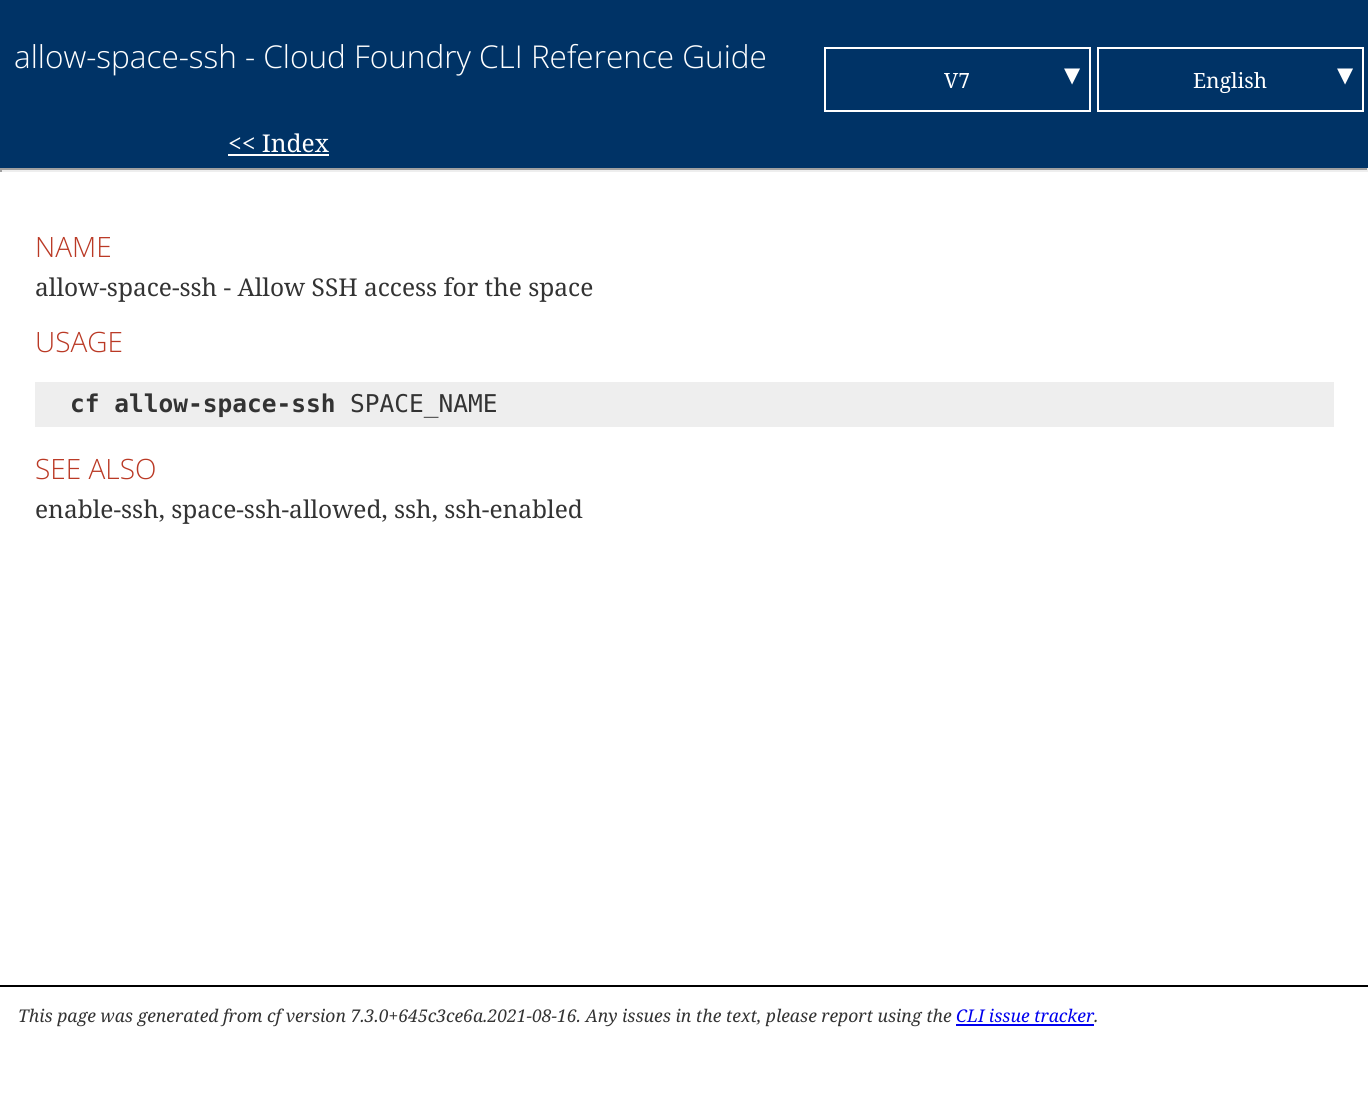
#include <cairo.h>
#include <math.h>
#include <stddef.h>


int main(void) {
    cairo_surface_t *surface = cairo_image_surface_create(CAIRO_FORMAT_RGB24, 1368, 1108);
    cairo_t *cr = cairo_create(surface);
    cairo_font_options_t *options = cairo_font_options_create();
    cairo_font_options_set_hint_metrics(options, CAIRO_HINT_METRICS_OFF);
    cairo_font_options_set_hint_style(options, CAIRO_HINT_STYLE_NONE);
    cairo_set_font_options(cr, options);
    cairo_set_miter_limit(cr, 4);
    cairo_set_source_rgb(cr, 1, 1, 1);
    cairo_paint(cr);
    cairo_set_source_rgb(cr, 0, 0.2, 0.4);
    cairo_rectangle(cr, 0, 0, 1368, 168);
    cairo_fill(cr);
    cairo_select_font_face(cr, "Open Sans Light", CAIRO_FONT_SLANT_NORMAL, CAIRO_FONT_WEIGHT_NORMAL);
    cairo_set_font_size(cr, 31.5);
    cairo_set_source_rgb(cr, 1, 1, 1);
    cairo_move_to(cr, 14, 68);
    cairo_show_text(cr, "allow-space-ssh - Cloud Foundry CLI Reference Guide");
    cairo_rectangle(cr, 1089, 47, 2, 65);
    cairo_fill(cr);
    cairo_rectangle(cr, 824, 110, 266, 2);
    cairo_fill(cr);
    cairo_rectangle(cr, 824, 47, 2, 65);
    cairo_fill(cr);
    cairo_rectangle(cr, 826, 47, 263, 2);
    cairo_fill(cr);
    cairo_select_font_face(cr, "Noto Serif", CAIRO_FONT_SLANT_NORMAL, CAIRO_FONT_WEIGHT_NORMAL);
    cairo_set_font_size(cr, 21);
    cairo_move_to(cr, 944, 88);
    cairo_show_text(cr, "V7");
    cairo_select_font_face(cr, "DejaVu Serif", CAIRO_FONT_SLANT_NORMAL, CAIRO_FONT_WEIGHT_NORMAL);
    cairo_move_to(cr, 1064, 82);
    cairo_show_text(cr, "▼");
    cairo_rectangle(cr, 1362, 47, 2, 65);
    cairo_fill(cr);
    cairo_rectangle(cr, 1097, 110, 266, 2);
    cairo_fill(cr);
    cairo_rectangle(cr, 1097, 47, 2, 65);
    cairo_fill(cr);
    cairo_rectangle(cr, 1099, 47, 263, 2);
    cairo_fill(cr);
    cairo_select_font_face(cr, "Noto Serif", CAIRO_FONT_SLANT_NORMAL, CAIRO_FONT_WEIGHT_NORMAL);
    cairo_move_to(cr, 1193, 88);
    cairo_show_text(cr, "English");
    cairo_select_font_face(cr, "DejaVu Serif", CAIRO_FONT_SLANT_NORMAL, CAIRO_FONT_WEIGHT_NORMAL);
    cairo_move_to(cr, 1337, 82);
    cairo_show_text(cr, "▼");
    cairo_select_font_face(cr, "Noto Serif", CAIRO_FONT_SLANT_NORMAL, CAIRO_FONT_WEIGHT_NORMAL);
    cairo_set_font_size(cr, 24.5);
    cairo_move_to(cr, 228, 152);
    cairo_show_text(cr, "<< Index");
    cairo_rectangle(cr, 228, 154, 101, 2);
    cairo_fill(cr);
    cairo_set_source_rgb(cr, 0.624, 0.624, 0.624);
    cairo_rectangle(cr, 0, 168, 1368, 2);
    cairo_fill(cr);
    cairo_set_source_rgb(cr, 0.933, 0.933, 0.933);
    cairo_rectangle(cr, 1367, 168, 1, 4);
    cairo_fill(cr);
    cairo_rectangle(cr, 0, 170, 1368, 2);
    cairo_fill(cr);
    cairo_set_source_rgb(cr, 0.624, 0.624, 0.624);
    cairo_rectangle(cr, 0, 168, 2, 4);
    cairo_fill(cr);
    cairo_select_font_face(cr, "Open Sans Light", CAIRO_FONT_SLANT_NORMAL, CAIRO_FONT_WEIGHT_NORMAL);
    cairo_set_font_size(cr, 28);
    cairo_set_source_rgb(cr, 0.729, 0.224, 0.145);
    cairo_move_to(cr, 35, 257);
    cairo_show_text(cr, "NAME");
    cairo_select_font_face(cr, "Noto Serif", CAIRO_FONT_SLANT_NORMAL, CAIRO_FONT_WEIGHT_NORMAL);
    cairo_set_font_size(cr, 24.5);
    cairo_set_source_rgb(cr, 0.2, 0.2, 0.2);
    cairo_move_to(cr, 35, 296);
    cairo_show_text(cr, "allow-space-ssh - Allow SSH access for the space");
    cairo_select_font_face(cr, "Open Sans Light", CAIRO_FONT_SLANT_NORMAL, CAIRO_FONT_WEIGHT_NORMAL);
    cairo_set_font_size(cr, 28);
    cairo_set_source_rgb(cr, 0.729, 0.224, 0.145);
    cairo_move_to(cr, 35, 352);
    cairo_show_text(cr, "USAGE");
    cairo_set_source_rgb(cr, 0.933, 0.933, 0.933);
    cairo_rectangle(cr, 35, 382, 1299, 45);
    cairo_fill(cr);
    cairo_select_font_face(cr, "DejaVu Sans Mono", CAIRO_FONT_SLANT_NORMAL, CAIRO_FONT_WEIGHT_BOLD);
    cairo_set_font_size(cr, 24.5);
    cairo_set_source_rgb(cr, 0.2, 0.2, 0.2);
    cairo_move_to(cr, 70, 412);
    cairo_show_text(cr, "cf allow-space-ssh");
    cairo_select_font_face(cr, "DejaVu Sans Mono", CAIRO_FONT_SLANT_NORMAL, CAIRO_FONT_WEIGHT_NORMAL);
    cairo_move_to(cr, 350, 412);
    cairo_show_text(cr, "SPACE_NAME");
    cairo_select_font_face(cr, "Open Sans Light", CAIRO_FONT_SLANT_NORMAL, CAIRO_FONT_WEIGHT_NORMAL);
    cairo_set_font_size(cr, 28);
    cairo_set_source_rgb(cr, 0.729, 0.224, 0.145);
    cairo_move_to(cr, 35, 479);
    cairo_show_text(cr, "SEE ALSO");
    cairo_select_font_face(cr, "Noto Serif", CAIRO_FONT_SLANT_NORMAL, CAIRO_FONT_WEIGHT_NORMAL);
    cairo_set_font_size(cr, 24.5);
    cairo_set_source_rgb(cr, 0.2, 0.2, 0.2);
    cairo_move_to(cr, 35, 518);
    cairo_show_text(cr, "enable-ssh, space-ssh-allowed, ssh, ssh-enabled");
    cairo_set_source_rgb(cr, 0, 0, 0);
    cairo_rectangle(cr, 0, 985, 1368, 2);
    cairo_fill(cr);
    cairo_select_font_face(cr, "Noto Serif", CAIRO_FONT_SLANT_ITALIC, CAIRO_FONT_WEIGHT_NORMAL);
    cairo_set_font_size(cr, 17.5);
    cairo_set_source_rgb(cr, 0.2, 0.2, 0.2);
    cairo_move_to(cr, 18, 1022);
    cairo_show_text(cr, "This page was generated from cf version 7.3.0+645c3ce6a.2021-08-16. Any issues in the text, please report using the");
    cairo_set_source_rgb(cr, 0, 0, 0.933);
    cairo_move_to(cr, 956, 1022);
    cairo_show_text(cr, "CLI issue tracker");
    cairo_set_source_rgb(cr, 0.2, 0.2, 0.2);
    cairo_move_to(cr, 1094, 1022);
    cairo_show_text(cr, ".");
    cairo_set_source_rgb(cr, 0, 0, 0.933);
    cairo_rectangle(cr, 956, 1024, 138, 2);
    cairo_fill(cr);
    cairo_surface_write_to_png(surface, "page.png");
    cairo_font_options_destroy(options);
    cairo_destroy(cr);
    cairo_surface_destroy(surface);
    return 0;
}
